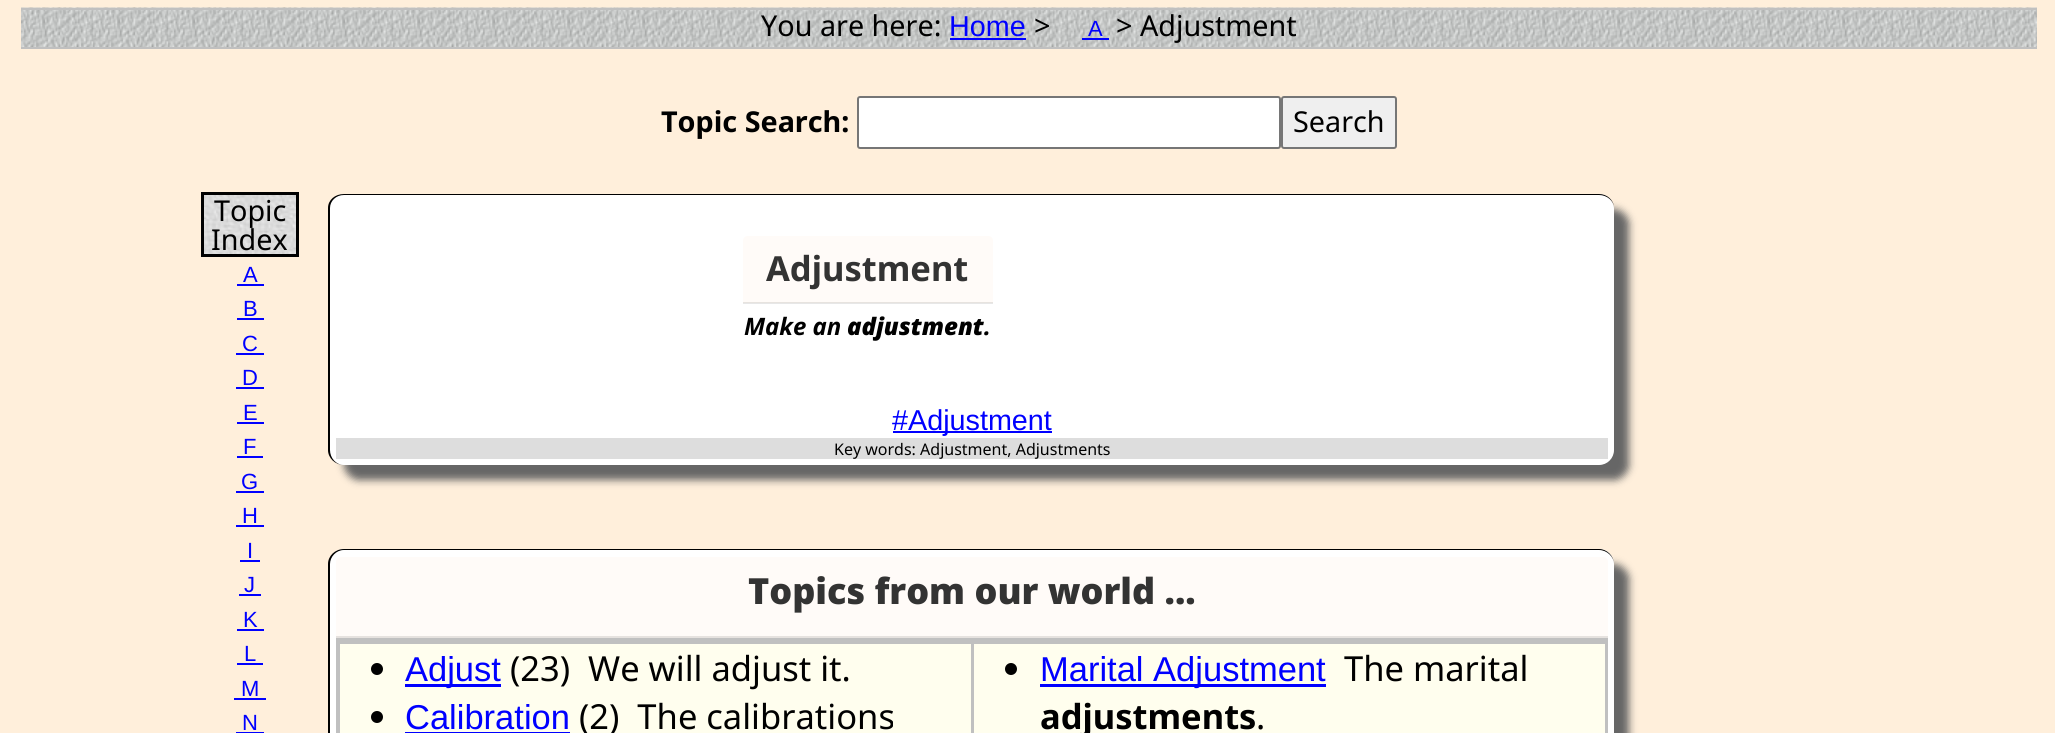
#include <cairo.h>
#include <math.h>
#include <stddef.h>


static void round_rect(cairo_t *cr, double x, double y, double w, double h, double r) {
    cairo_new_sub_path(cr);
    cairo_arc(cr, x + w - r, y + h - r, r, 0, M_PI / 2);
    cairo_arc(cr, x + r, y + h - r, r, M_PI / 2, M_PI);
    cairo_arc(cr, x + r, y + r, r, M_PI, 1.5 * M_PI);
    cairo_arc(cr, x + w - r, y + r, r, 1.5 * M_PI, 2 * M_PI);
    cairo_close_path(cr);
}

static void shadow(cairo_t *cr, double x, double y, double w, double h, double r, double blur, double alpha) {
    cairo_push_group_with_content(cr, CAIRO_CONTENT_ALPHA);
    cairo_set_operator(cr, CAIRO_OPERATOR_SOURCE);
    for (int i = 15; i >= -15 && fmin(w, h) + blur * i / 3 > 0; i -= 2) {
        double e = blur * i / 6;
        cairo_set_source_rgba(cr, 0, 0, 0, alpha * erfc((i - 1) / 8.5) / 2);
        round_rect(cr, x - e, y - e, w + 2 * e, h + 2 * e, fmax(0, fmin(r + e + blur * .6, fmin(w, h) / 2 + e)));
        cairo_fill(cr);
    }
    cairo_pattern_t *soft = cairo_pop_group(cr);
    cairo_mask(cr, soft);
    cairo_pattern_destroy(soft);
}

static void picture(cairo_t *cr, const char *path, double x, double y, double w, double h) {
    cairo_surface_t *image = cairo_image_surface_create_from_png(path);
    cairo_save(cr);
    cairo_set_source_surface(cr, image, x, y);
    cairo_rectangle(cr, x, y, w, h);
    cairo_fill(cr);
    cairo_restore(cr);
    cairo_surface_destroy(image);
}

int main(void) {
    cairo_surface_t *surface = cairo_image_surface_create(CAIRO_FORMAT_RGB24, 2055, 733);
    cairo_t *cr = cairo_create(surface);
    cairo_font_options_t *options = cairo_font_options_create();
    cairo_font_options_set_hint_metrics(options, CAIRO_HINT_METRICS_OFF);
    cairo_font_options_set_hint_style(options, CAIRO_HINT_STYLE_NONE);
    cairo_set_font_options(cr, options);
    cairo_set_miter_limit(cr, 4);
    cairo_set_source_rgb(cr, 1, 0.937, 0.859);
    cairo_paint(cr);
    picture(cr, "img1.png", 21, 7, 2016, 40);
    cairo_set_source_rgb(cr, 0.753, 0.753, 0.753);
    cairo_rectangle(cr, 21, 8, 2016, 2);
    cairo_fill(cr);
    cairo_rectangle(cr, 21, 47, 2016, 2);
    cairo_fill(cr);
    cairo_select_font_face(cr, "Noto Sans", CAIRO_FONT_SLANT_NORMAL, CAIRO_FONT_WEIGHT_NORMAL);
    cairo_set_font_size(cr, 28.75);
    cairo_set_source_rgb(cr, 0, 0, 0);
    cairo_move_to(cr, 761, 36);
    cairo_show_text(cr, "You are here:");
    cairo_select_font_face(cr, "Liberation Sans", CAIRO_FONT_SLANT_NORMAL, CAIRO_FONT_WEIGHT_NORMAL);
    cairo_set_source_rgb(cr, 0, 0, 1);
    cairo_move_to(cr, 949, 36);
    cairo_show_text(cr, "Home");
    cairo_rectangle(cr, 950, 38, 76, 2);
    cairo_fill(cr);
    cairo_select_font_face(cr, "Noto Sans", CAIRO_FONT_SLANT_NORMAL, CAIRO_FONT_WEIGHT_NORMAL);
    cairo_set_source_rgb(cr, 0, 0, 0);
    cairo_move_to(cr, 1034, 36);
    cairo_show_text(cr, ">");
    cairo_select_font_face(cr, "Liberation Sans", CAIRO_FONT_SLANT_NORMAL, CAIRO_FONT_WEIGHT_NORMAL);
    cairo_set_font_size(cr, 22);
    cairo_set_source_rgb(cr, 0, 0, 1);
    cairo_move_to(cr, 1088, 36);
    cairo_show_text(cr, "A");
    cairo_rectangle(cr, 1082, 38, 27, 2);
    cairo_fill(cr);
    cairo_select_font_face(cr, "Noto Sans", CAIRO_FONT_SLANT_NORMAL, CAIRO_FONT_WEIGHT_NORMAL);
    cairo_set_font_size(cr, 28.75);
    cairo_set_source_rgb(cr, 0, 0, 0);
    cairo_move_to(cr, 1116, 36);
    cairo_show_text(cr, "> Adjustment");
    cairo_select_font_face(cr, "Noto Sans", CAIRO_FONT_SLANT_NORMAL, CAIRO_FONT_WEIGHT_BOLD);
    cairo_move_to(cr, 661, 132);
    cairo_show_text(cr, "Topic Search:");
    cairo_set_source_rgb(cr, 1, 1, 1);
    round_rect(cr, 858, 97, 422, 51, 2);
    cairo_fill_preserve(cr);
    cairo_set_source_rgb(cr, 0.463, 0.463, 0.463);
    cairo_stroke(cr);
    cairo_set_source_rgb(cr, 0.937, 0.937, 0.937);
    round_rect(cr, 1282, 97, 114, 51, 2);
    cairo_fill_preserve(cr);
    cairo_set_source_rgb(cr, 0.463, 0.463, 0.463);
    cairo_stroke(cr);
    cairo_select_font_face(cr, "Noto Sans", CAIRO_FONT_SLANT_NORMAL, CAIRO_FONT_WEIGHT_NORMAL);
    cairo_set_source_rgb(cr, 0, 0, 0);
    cairo_move_to(cr, 1293, 132);
    cairo_show_text(cr, "Search");
    picture(cr, "img2.png", 204, 195, 92, 59);
    cairo_rectangle(cr, 202.5, 193.5, 95, 62);
    cairo_set_line_width(cr, 3);
    cairo_stroke(cr);
    cairo_move_to(cr, 214, 221);
    cairo_show_text(cr, "Topic");
    cairo_move_to(cr, 211, 250);
    cairo_show_text(cr, "Index");
    cairo_select_font_face(cr, "Liberation Sans", CAIRO_FONT_SLANT_NORMAL, CAIRO_FONT_WEIGHT_NORMAL);
    cairo_set_font_size(cr, 22);
    cairo_set_source_rgb(cr, 0, 0, 1);
    cairo_move_to(cr, 243, 282);
    cairo_show_text(cr, "A");
    cairo_rectangle(cr, 237, 284, 27, 2);
    cairo_fill(cr);
    cairo_move_to(cr, 243, 316);
    cairo_show_text(cr, "B");
    cairo_rectangle(cr, 237, 318, 27, 2);
    cairo_fill(cr);
    cairo_move_to(cr, 242, 351);
    cairo_show_text(cr, "C");
    cairo_rectangle(cr, 236, 353, 28, 2);
    cairo_fill(cr);
    cairo_move_to(cr, 242, 385);
    cairo_show_text(cr, "D");
    cairo_rectangle(cr, 236, 387, 28, 2);
    cairo_fill(cr);
    cairo_move_to(cr, 243, 420);
    cairo_show_text(cr, "E");
    cairo_rectangle(cr, 237, 422, 27, 2);
    cairo_fill(cr);
    cairo_move_to(cr, 243, 454);
    cairo_show_text(cr, "F");
    cairo_rectangle(cr, 237, 456, 26, 2);
    cairo_fill(cr);
    cairo_move_to(cr, 241, 489);
    cairo_show_text(cr, "G");
    cairo_rectangle(cr, 236, 491, 28, 2);
    cairo_fill(cr);
    cairo_move_to(cr, 242, 523);
    cairo_show_text(cr, "H");
    cairo_rectangle(cr, 236, 525, 28, 2);
    cairo_fill(cr);
    cairo_move_to(cr, 247, 558);
    cairo_show_text(cr, "I");
    cairo_rectangle(cr, 240, 560, 20, 2);
    cairo_fill(cr);
    cairo_move_to(cr, 244, 592);
    cairo_show_text(cr, "J");
    cairo_rectangle(cr, 239, 594, 22, 2);
    cairo_fill(cr);
    cairo_move_to(cr, 243, 627);
    cairo_show_text(cr, "K");
    cairo_rectangle(cr, 237, 629, 27, 2);
    cairo_fill(cr);
    cairo_move_to(cr, 244, 661);
    cairo_show_text(cr, "L");
    cairo_rectangle(cr, 237, 663, 26, 2);
    cairo_fill(cr);
    cairo_move_to(cr, 241, 696);
    cairo_show_text(cr, "M");
    cairo_rectangle(cr, 234, 698, 32, 2);
    cairo_fill(cr);
    cairo_move_to(cr, 242, 730);
    cairo_show_text(cr, "N");
    cairo_rectangle(cr, 236, 732, 28, 1);
    cairo_fill(cr);
    cairo_set_source_rgb(cr, 0.4, 0.4, 0.4);
    shadow(cr, 344, 209, 1285, 271, 15, 4, 1);
    cairo_set_source_rgb(cr, 1, 1, 1);
    round_rect(cr, 329, 194, 1285, 271, 15);
    cairo_fill(cr);
    cairo_set_source_rgb(cr, 0.906, 0.906, 0.906);
    cairo_rectangle(cr, 743, 303, 250, 1);
    cairo_fill(cr);
    cairo_set_source_rgb(cr, 0, 0, 0);
    cairo_set_fill_rule(cr, CAIRO_FILL_RULE_EVEN_ODD);
    cairo_new_path(cr);
    cairo_move_to(cr, 344, 194);
    cairo_line_to(cr, 1599, 194);
    cairo_curve_to(cr, 1607, 194, 1614, 200, 1614, 208);
    cairo_line_to(cr, 1614, 450);
    cairo_curve_to(cr, 1614, 458, 1607, 465, 1599, 465);
    cairo_line_to(cr, 344, 465);
    cairo_curve_to(cr, 335, 465, 328, 458, 328, 450);
    cairo_line_to(cr, 328, 208);
    cairo_curve_to(cr, 328, 200, 335, 194, 344, 194);
    cairo_close_path(cr);
    cairo_move_to(cr, 344, 195);
    cairo_line_to(cr, 1599, 195);
    cairo_curve_to(cr, 1607, 195, 1614, 201, 1614, 208);
    cairo_line_to(cr, 1614, 450);
    cairo_curve_to(cr, 1614, 458, 1607, 465, 1599, 465);
    cairo_line_to(cr, 344, 465);
    cairo_curve_to(cr, 336, 465, 330, 458, 330, 450);
    cairo_line_to(cr, 330, 208);
    cairo_curve_to(cr, 330, 201, 336, 195, 344, 195);
    cairo_close_path(cr);
    cairo_fill(cr);
    cairo_set_source_rgb(cr, 1, 0.984, 0.969);
    cairo_new_path(cr);
    cairo_move_to(cr, 748, 236);
    cairo_line_to(cr, 988, 236);
    cairo_curve_to(cr, 991, 236, 993, 238, 993, 241);
    cairo_line_to(cr, 993, 303);
    cairo_line_to(cr, 743, 303);
    cairo_line_to(cr, 743, 241);
    cairo_curve_to(cr, 743, 238, 745, 236, 748, 236);
    cairo_close_path(cr);
    cairo_fill(cr);
    cairo_set_source_rgb(cr, 0.906, 0.89, 0.875);
    cairo_rectangle(cr, 743, 302, 250, 1);
    cairo_fill(cr);
    cairo_select_font_face(cr, "Noto Sans", CAIRO_FONT_SLANT_NORMAL, CAIRO_FONT_WEIGHT_BOLD);
    cairo_set_font_size(cr, 34.5);
    cairo_set_source_rgb(cr, 0.2, 0.2, 0.2);
    cairo_move_to(cr, 766, 281);
    cairo_show_text(cr, "Adjustment");
    cairo_select_font_face(cr, "Noto Sans", CAIRO_FONT_SLANT_ITALIC, CAIRO_FONT_WEIGHT_BOLD);
    cairo_set_font_size(cr, 24);
    cairo_set_source_rgb(cr, 0, 0, 0);
    cairo_move_to(cr, 744, 335);
    cairo_show_text(cr, "Make an");
    cairo_select_font_face(cr, "Noto Sans Black", CAIRO_FONT_SLANT_ITALIC, CAIRO_FONT_WEIGHT_NORMAL);
    cairo_move_to(cr, 847, 335);
    cairo_show_text(cr, "adjustment");
    cairo_select_font_face(cr, "Noto Sans", CAIRO_FONT_SLANT_ITALIC, CAIRO_FONT_WEIGHT_BOLD);
    cairo_move_to(cr, 984, 335);
    cairo_show_text(cr, ".");
    cairo_set_source_rgb(cr, 0, 0, 1);
    cairo_rectangle(cr, 893, 431, 159, 2);
    cairo_fill(cr);
    cairo_select_font_face(cr, "Liberation Sans", CAIRO_FONT_SLANT_NORMAL, CAIRO_FONT_WEIGHT_NORMAL);
    cairo_set_font_size(cr, 28.75);
    cairo_move_to(cr, 892, 430);
    cairo_show_text(cr, "#Adjustment");
    cairo_set_source_rgb(cr, 0.867, 0.867, 0.867);
    cairo_rectangle(cr, 336, 438, 1272, 21);
    cairo_fill(cr);
    cairo_select_font_face(cr, "Noto Sans", CAIRO_FONT_SLANT_NORMAL, CAIRO_FONT_WEIGHT_NORMAL);
    cairo_set_font_size(cr, 16);
    cairo_set_source_rgb(cr, 0, 0, 0);
    cairo_move_to(cr, 834, 455);
    cairo_show_text(cr, "Key words: Adjustment, Adjustments");
    cairo_set_source_rgb(cr, 0.4, 0.4, 0.4);
    shadow(cr, 344, 564, 1285, 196, 15, 4, 1);
    cairo_set_source_rgb(cr, 1, 1, 1);
    round_rect(cr, 329, 549, 1285, 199, 15);
    cairo_fill(cr);
    cairo_set_source_rgb(cr, 0, 0, 0);
    cairo_new_path(cr);
    cairo_move_to(cr, 344, 549);
    cairo_line_to(cr, 1599, 549);
    cairo_curve_to(cr, 1607, 549, 1614, 556, 1614, 564);
    cairo_line_to(cr, 1614, 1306);
    cairo_curve_to(cr, 1614, 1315, 1607, 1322, 1599, 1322);
    cairo_line_to(cr, 344, 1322);
    cairo_curve_to(cr, 335, 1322, 328, 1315, 328, 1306);
    cairo_line_to(cr, 328, 564);
    cairo_curve_to(cr, 328, 556, 335, 549, 344, 549);
    cairo_close_path(cr);
    cairo_move_to(cr, 344, 550);
    cairo_line_to(cr, 1599, 550);
    cairo_curve_to(cr, 1607, 550, 1614, 557, 1614, 564);
    cairo_line_to(cr, 1614, 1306);
    cairo_curve_to(cr, 1614, 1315, 1607, 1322, 1599, 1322);
    cairo_line_to(cr, 344, 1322);
    cairo_curve_to(cr, 336, 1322, 330, 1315, 330, 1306);
    cairo_line_to(cr, 330, 564);
    cairo_curve_to(cr, 330, 557, 336, 550, 344, 550);
    cairo_close_path(cr);
    cairo_fill(cr);
    cairo_set_source_rgb(cr, 1, 0.984, 0.969);
    cairo_new_path(cr);
    cairo_move_to(cr, 341, 557);
    cairo_line_to(cr, 1603, 557);
    cairo_curve_to(cr, 1606, 557, 1608, 559, 1608, 562);
    cairo_line_to(cr, 1608, 638);
    cairo_line_to(cr, 336, 638);
    cairo_line_to(cr, 336, 562);
    cairo_curve_to(cr, 336, 559, 338, 557, 341, 557);
    cairo_close_path(cr);
    cairo_fill(cr);
    cairo_set_source_rgb(cr, 0.902, 0.886, 0.875);
    cairo_rectangle(cr, 336, 636, 1272, 2);
    cairo_fill(cr);
    cairo_select_font_face(cr, "Noto Sans Black", CAIRO_FONT_SLANT_NORMAL, CAIRO_FONT_WEIGHT_NORMAL);
    cairo_set_font_size(cr, 36);
    cairo_set_source_rgb(cr, 0.2, 0.2, 0.2);
    cairo_move_to(cr, 748, 604);
    cairo_show_text(cr, "Topics from our world ...");
    cairo_rectangle(cr, 337, 639, 1270, 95);
    cairo_set_source_rgb(cr, 0.753, 0.753, 0.753);
    cairo_set_line_width(cr, 2);
    cairo_stroke(cr);
    cairo_set_source_rgb(cr, 1, 0.996, 0.933);
    cairo_rectangle(cr, 340, 644, 631, 89);
    cairo_fill(cr);
    cairo_set_source_rgb(cr, 0.753, 0.753, 0.753);
    cairo_rectangle(cr, 338, 640, 1269, 4);
    cairo_fill(cr);
    cairo_rectangle(cr, 971, 639, 3, 94);
    cairo_fill(cr);
    cairo_rectangle(cr, 338, 639, 2, 94);
    cairo_fill(cr);
    cairo_set_source_rgb(cr, 0, 0, 0);
    cairo_arc(cr, 377, 669, 6, 0, 2 * M_PI);
    cairo_fill(cr);
    cairo_set_source_rgb(cr, 0, 0, 1);
    cairo_rectangle(cr, 405, 684, 96, 3);
    cairo_fill(cr);
    cairo_select_font_face(cr, "Liberation Sans", CAIRO_FONT_SLANT_NORMAL, CAIRO_FONT_WEIGHT_NORMAL);
    cairo_set_font_size(cr, 34.5);
    cairo_move_to(cr, 405, 681);
    cairo_show_text(cr, "Adjust");
    cairo_select_font_face(cr, "Noto Sans", CAIRO_FONT_SLANT_NORMAL, CAIRO_FONT_WEIGHT_NORMAL);
    cairo_set_source_rgb(cr, 0, 0, 0);
    cairo_move_to(cr, 510, 681);
    cairo_show_text(cr, "(23)  We will adjust it.");
    cairo_new_path(cr);
    cairo_arc(cr, 377, 717, 6, 0, 2 * M_PI);
    cairo_fill(cr);
    cairo_select_font_face(cr, "Liberation Sans", CAIRO_FONT_SLANT_NORMAL, CAIRO_FONT_WEIGHT_NORMAL);
    cairo_set_source_rgb(cr, 0, 0, 1);
    cairo_move_to(cr, 405, 729);
    cairo_show_text(cr, "Calibration");
    cairo_rectangle(cr, 405, 732, 165, 1);
    cairo_fill(cr);
    cairo_select_font_face(cr, "Noto Sans", CAIRO_FONT_SLANT_NORMAL, CAIRO_FONT_WEIGHT_NORMAL);
    cairo_set_source_rgb(cr, 0, 0, 0);
    cairo_move_to(cr, 579, 729);
    cairo_show_text(cr, "(2)  The calibrations");
    cairo_set_source_rgb(cr, 1, 0.996, 0.933);
    cairo_rectangle(cr, 974, 644, 631, 89);
    cairo_fill(cr);
    cairo_set_source_rgb(cr, 0.753, 0.753, 0.753);
    cairo_rectangle(cr, 1605, 639, 1, 94);
    cairo_fill(cr);
    cairo_set_source_rgb(cr, 0, 0, 0);
    cairo_arc(cr, 1011, 669, 6, 0, 2 * M_PI);
    cairo_fill(cr);
    cairo_set_source_rgb(cr, 0, 0, 1);
    cairo_rectangle(cr, 1040, 684, 286, 3);
    cairo_fill(cr);
    cairo_select_font_face(cr, "Liberation Sans", CAIRO_FONT_SLANT_NORMAL, CAIRO_FONT_WEIGHT_NORMAL);
    cairo_move_to(cr, 1040, 681);
    cairo_show_text(cr, "Marital Adjustment");
    cairo_select_font_face(cr, "Noto Sans", CAIRO_FONT_SLANT_NORMAL, CAIRO_FONT_WEIGHT_NORMAL);
    cairo_set_source_rgb(cr, 0, 0, 0);
    cairo_move_to(cr, 1344, 681);
    cairo_show_text(cr, "The marital");
    cairo_select_font_face(cr, "Noto Sans", CAIRO_FONT_SLANT_NORMAL, CAIRO_FONT_WEIGHT_BOLD);
    cairo_move_to(cr, 1040, 729);
    cairo_show_text(cr, "adjustments");
    cairo_select_font_face(cr, "Noto Sans", CAIRO_FONT_SLANT_NORMAL, CAIRO_FONT_WEIGHT_NORMAL);
    cairo_move_to(cr, 1256, 729);
    cairo_show_text(cr, ".");
    cairo_surface_write_to_png(surface, "page.png");
    cairo_font_options_destroy(options);
    cairo_destroy(cr);
    cairo_surface_destroy(surface);
    return 0;
}
